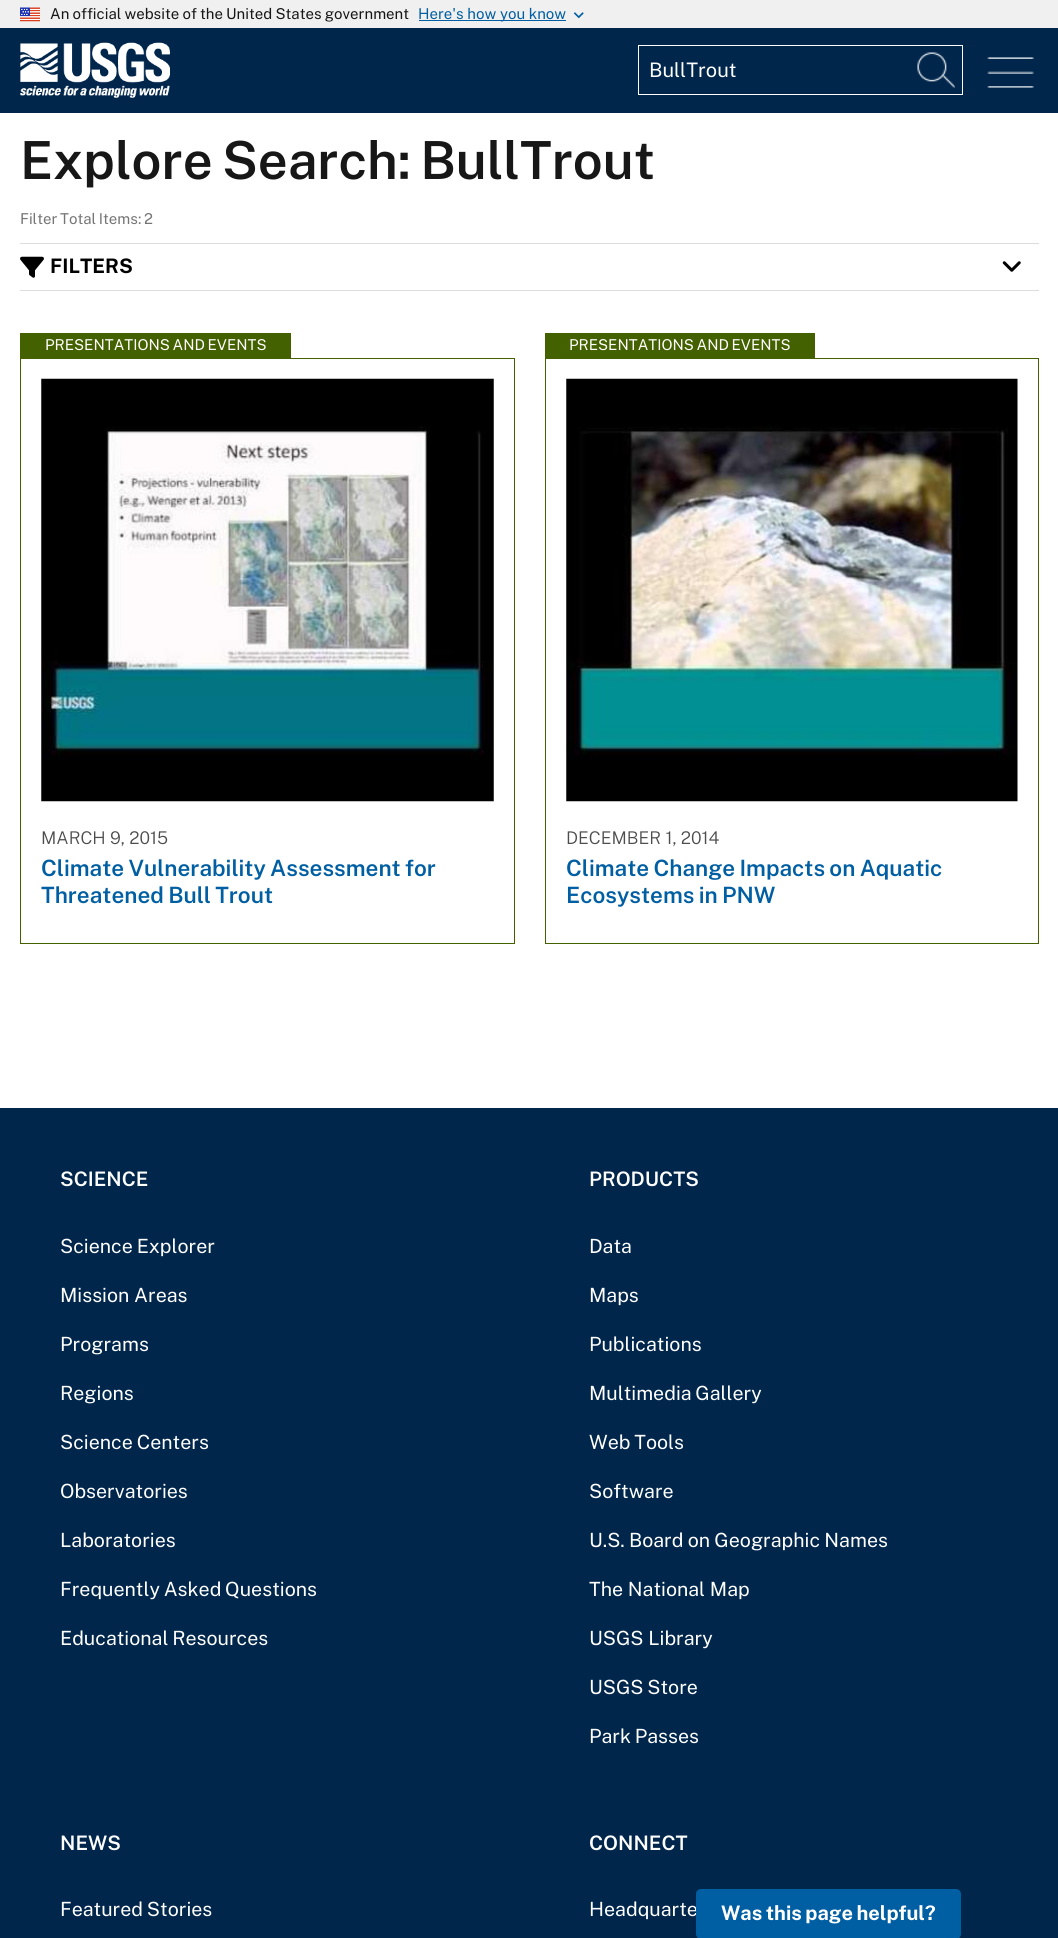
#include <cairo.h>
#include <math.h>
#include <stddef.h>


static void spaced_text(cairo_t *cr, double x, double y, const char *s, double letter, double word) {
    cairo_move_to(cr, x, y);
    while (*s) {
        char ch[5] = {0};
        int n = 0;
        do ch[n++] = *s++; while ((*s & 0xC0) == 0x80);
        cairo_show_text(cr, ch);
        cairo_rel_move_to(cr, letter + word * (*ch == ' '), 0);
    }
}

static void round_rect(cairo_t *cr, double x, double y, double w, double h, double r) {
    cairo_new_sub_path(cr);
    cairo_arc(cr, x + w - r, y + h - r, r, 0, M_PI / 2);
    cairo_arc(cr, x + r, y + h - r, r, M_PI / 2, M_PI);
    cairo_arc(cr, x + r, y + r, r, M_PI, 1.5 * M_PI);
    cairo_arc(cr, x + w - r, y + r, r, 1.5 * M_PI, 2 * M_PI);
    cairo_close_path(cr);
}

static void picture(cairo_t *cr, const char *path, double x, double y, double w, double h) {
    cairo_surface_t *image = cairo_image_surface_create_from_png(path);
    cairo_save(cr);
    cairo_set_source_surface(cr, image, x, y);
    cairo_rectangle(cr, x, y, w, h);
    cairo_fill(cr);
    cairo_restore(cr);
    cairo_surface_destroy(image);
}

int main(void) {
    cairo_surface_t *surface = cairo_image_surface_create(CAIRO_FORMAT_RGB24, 1058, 1938);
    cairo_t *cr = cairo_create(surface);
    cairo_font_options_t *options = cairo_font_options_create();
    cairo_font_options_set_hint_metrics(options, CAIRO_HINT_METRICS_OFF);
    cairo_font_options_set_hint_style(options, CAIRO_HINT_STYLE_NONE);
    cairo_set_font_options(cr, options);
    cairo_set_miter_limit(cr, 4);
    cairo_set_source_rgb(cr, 1, 1, 1);
    cairo_paint(cr);
    cairo_set_source_rgb(cr, 0.941, 0.941, 0.941);
    cairo_rectangle(cr, 0, 0, 1058, 28);
    cairo_fill(cr);
    picture(cr, "img1.png", 20, 7, 20, 15);
    cairo_select_font_face(cr, "Public Sans", CAIRO_FONT_SLANT_NORMAL, CAIRO_FONT_WEIGHT_NORMAL);
    cairo_set_font_size(cr, 15);
    cairo_set_source_rgb(cr, 0.09, 0.09, 0.09);
    spaced_text(cr, 50, 19, "An official website of the United States government", 0, -0.5);
    cairo_set_source_rgb(cr, 0, 0.369, 0.635);
    cairo_rectangle(cr, 419, 20, 147, 1);
    cairo_fill(cr);
    cairo_move_to(cr, 418, 19);
    cairo_show_text(cr, "Here's how you know");
    picture(cr, "img2.png", 573, 12, 11, 7);
    cairo_set_source_rgb(cr, 0, 0.149, 0.298);
    cairo_rectangle(cr, 0, 28, 1058, 85);
    cairo_fill(cr);
    picture(cr, "img3.png", 20, 42, 150, 56);
    cairo_rectangle(cr, 638.5, 45.5, 324, 49);
    cairo_set_source_rgb(cr, 1, 1, 1);
    cairo_set_line_width(cr, 1);
    cairo_stroke(cr);
    cairo_set_font_size(cr, 20);
    cairo_move_to(cr, 649, 77);
    cairo_show_text(cr, "BullTrout");
    picture(cr, "img4.png", 917, 52, 38, 36);
    picture(cr, "img5.png", 987, 57, 47, 31);
    cairo_select_font_face(cr, "Public Sans SemiBold", CAIRO_FONT_SLANT_NORMAL, CAIRO_FONT_WEIGHT_NORMAL);
    cairo_set_font_size(cr, 52.5);
    cairo_set_source_rgb(cr, 0.09, 0.09, 0.09);
    spaced_text(cr, 20, 179, "Explore Search: BullTrout", 0, -3);
    cairo_select_font_face(cr, "Public Sans", CAIRO_FONT_SLANT_NORMAL, CAIRO_FONT_WEIGHT_NORMAL);
    cairo_set_font_size(cr, 15);
    cairo_set_source_rgb(cr, 0.459, 0.459, 0.459);
    spaced_text(cr, 20, 224, "Filter Total Items: 2", 0, -1);
    cairo_set_source_rgb(cr, 0.867, 0.867, 0.867);
    cairo_rectangle(cr, 20, 243, 1019, 1);
    cairo_fill(cr);
    cairo_rectangle(cr, 20, 290, 1019, 1);
    cairo_fill(cr);
    picture(cr, "img6.png", 20, 256, 24, 22);
    cairo_select_font_face(cr, "Public Sans", CAIRO_FONT_SLANT_NORMAL, CAIRO_FONT_WEIGHT_BOLD);
    cairo_set_font_size(cr, 20);
    cairo_set_source_rgb(cr, 0, 0, 0);
    cairo_move_to(cr, 50, 273);
    cairo_show_text(cr, "FILTERS");
    picture(cr, "img7.png", 1002, 261, 19, 11);
    cairo_set_source_rgb(cr, 0.267, 0.38, 0);
    cairo_rectangle(cr, 20, 333, 271, 25);
    cairo_fill(cr);
    cairo_select_font_face(cr, "Public Sans", CAIRO_FONT_SLANT_NORMAL, CAIRO_FONT_WEIGHT_NORMAL);
    cairo_set_font_size(cr, 15);
    cairo_set_source_rgb(cr, 1, 1, 1);
    spaced_text(cr, 45, 350, "PRESENTATIONS AND EVENTS", 0, -1);
    cairo_rectangle(cr, 20.5, 358.5, 494, 585);
    cairo_set_source_rgb(cr, 0.267, 0.38, 0);
    cairo_stroke(cr);
    picture(cr, "img8.png", 41, 378, 453, 424);
    cairo_select_font_face(cr, "Public Sans Light", CAIRO_FONT_SLANT_NORMAL, CAIRO_FONT_WEIGHT_NORMAL);
    cairo_set_font_size(cr, 17.5);
    cairo_set_source_rgb(cr, 0.302, 0.302, 0.302);
    cairo_move_to(cr, 41, 844);
    cairo_show_text(cr, "MARCH 9, 2015");
    cairo_select_font_face(cr, "Public Sans SemiBold", CAIRO_FONT_SLANT_NORMAL, CAIRO_FONT_WEIGHT_NORMAL);
    cairo_set_font_size(cr, 22.5);
    cairo_set_source_rgb(cr, 0, 0.369, 0.635);
    spaced_text(cr, 41, 876, "Climate Vulnerability Assessment for", 0, -1);
    spaced_text(cr, 41, 903, "Threatened Bull Trout", 0, -1);
    cairo_set_source_rgb(cr, 0.267, 0.38, 0);
    cairo_rectangle(cr, 545, 333, 270, 25);
    cairo_fill(cr);
    cairo_select_font_face(cr, "Public Sans", CAIRO_FONT_SLANT_NORMAL, CAIRO_FONT_WEIGHT_NORMAL);
    cairo_set_font_size(cr, 15);
    cairo_set_source_rgb(cr, 1, 1, 1);
    spaced_text(cr, 569, 350, "PRESENTATIONS AND EVENTS", 0, -1);
    cairo_rectangle(cr, 545.5, 358.5, 493, 585);
    cairo_set_source_rgb(cr, 0.267, 0.38, 0);
    cairo_stroke(cr);
    picture(cr, "img9.png", 566, 378, 452, 424);
    cairo_select_font_face(cr, "Public Sans Light", CAIRO_FONT_SLANT_NORMAL, CAIRO_FONT_WEIGHT_NORMAL);
    cairo_set_font_size(cr, 17.5);
    cairo_set_source_rgb(cr, 0.302, 0.302, 0.302);
    cairo_move_to(cr, 566, 844);
    cairo_show_text(cr, "DECEMBER 1, 2014");
    cairo_select_font_face(cr, "Public Sans SemiBold", CAIRO_FONT_SLANT_NORMAL, CAIRO_FONT_WEIGHT_NORMAL);
    cairo_set_font_size(cr, 22.5);
    cairo_set_source_rgb(cr, 0, 0.369, 0.635);
    spaced_text(cr, 566, 876, "Climate Change Impacts on Aquatic", 0, -1);
    spaced_text(cr, 566, 903, "Ecosystems in PNW", 0, -1);
    cairo_set_source_rgb(cr, 0, 0.149, 0.298);
    cairo_rectangle(cr, 0, 1108, 1058, 830);
    cairo_fill(cr);
    cairo_set_font_size(cr, 20);
    cairo_set_source_rgb(cr, 1, 1, 1);
    cairo_move_to(cr, 60, 1186);
    cairo_show_text(cr, "SCIENCE");
    cairo_select_font_face(cr, "Public Sans", CAIRO_FONT_SLANT_NORMAL, CAIRO_FONT_WEIGHT_NORMAL);
    cairo_set_font_size(cr, 19.6);
    spaced_text(cr, 60, 1253, "Science Explorer", 0, -1);
    cairo_move_to(cr, 60, 1302);
    cairo_show_text(cr, "Mission Areas");
    cairo_move_to(cr, 60, 1351);
    cairo_show_text(cr, "Programs");
    cairo_move_to(cr, 60, 1400);
    cairo_show_text(cr, "Regions");
    spaced_text(cr, 60, 1449, "Science Centers", 0, -1);
    cairo_move_to(cr, 60, 1498);
    cairo_show_text(cr, "Observatories");
    cairo_move_to(cr, 60, 1547);
    cairo_show_text(cr, "Laboratories");
    spaced_text(cr, 60, 1596, "Frequently Asked Questions", 0, -1);
    spaced_text(cr, 60, 1645, "Educational Resources", 0, -1);
    cairo_select_font_face(cr, "Public Sans SemiBold", CAIRO_FONT_SLANT_NORMAL, CAIRO_FONT_WEIGHT_NORMAL);
    cairo_set_font_size(cr, 20);
    cairo_move_to(cr, 589, 1186);
    cairo_show_text(cr, "PRODUCTS");
    cairo_select_font_face(cr, "Public Sans", CAIRO_FONT_SLANT_NORMAL, CAIRO_FONT_WEIGHT_NORMAL);
    cairo_set_font_size(cr, 19.6);
    cairo_move_to(cr, 589, 1253);
    cairo_show_text(cr, "Data");
    cairo_move_to(cr, 589, 1302);
    cairo_show_text(cr, "Maps");
    cairo_move_to(cr, 589, 1351);
    cairo_show_text(cr, "Publications");
    spaced_text(cr, 589, 1400, "Multimedia Gallery", 0, -1);
    spaced_text(cr, 589, 1449, "Web Tools", 0, -1);
    cairo_move_to(cr, 589, 1498);
    cairo_show_text(cr, "Software");
    spaced_text(cr, 589, 1547, "U.S. Board on Geographic Names", 0, -0.5);
    cairo_move_to(cr, 589, 1596);
    cairo_show_text(cr, "The National Map");
    cairo_move_to(cr, 589, 1645);
    cairo_show_text(cr, "USGS Library");
    spaced_text(cr, 589, 1694, "USGS Store", 0, -1);
    spaced_text(cr, 589, 1743, "Park Passes", 0, -1);
    cairo_select_font_face(cr, "Public Sans SemiBold", CAIRO_FONT_SLANT_NORMAL, CAIRO_FONT_WEIGHT_NORMAL);
    cairo_set_font_size(cr, 20);
    cairo_move_to(cr, 60, 1850);
    cairo_show_text(cr, "NEWS");
    cairo_select_font_face(cr, "Public Sans", CAIRO_FONT_SLANT_NORMAL, CAIRO_FONT_WEIGHT_NORMAL);
    cairo_set_font_size(cr, 19.6);
    spaced_text(cr, 60, 1916, "Featured Stories", 0, -1);
    cairo_select_font_face(cr, "Public Sans SemiBold", CAIRO_FONT_SLANT_NORMAL, CAIRO_FONT_WEIGHT_NORMAL);
    cairo_set_font_size(cr, 20);
    cairo_move_to(cr, 589, 1850);
    cairo_show_text(cr, "CONNECT");
    cairo_select_font_face(cr, "Public Sans", CAIRO_FONT_SLANT_NORMAL, CAIRO_FONT_WEIGHT_NORMAL);
    cairo_set_font_size(cr, 19.6);
    cairo_move_to(cr, 589, 1916);
    cairo_show_text(cr, "Headquarte");
    cairo_set_source_rgb(cr, 0, 0.369, 0.635);
    round_rect(cr, 696, 1889, 265, 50, 5);
    cairo_fill(cr);
    cairo_select_font_face(cr, "Public Sans", CAIRO_FONT_SLANT_NORMAL, CAIRO_FONT_WEIGHT_BOLD);
    cairo_set_font_size(cr, 20);
    cairo_set_source_rgb(cr, 1, 1, 1);
    spaced_text(cr, 721, 1920, "Was this page helpful?", 0, -1);
    cairo_surface_write_to_png(surface, "page.png");
    cairo_font_options_destroy(options);
    cairo_destroy(cr);
    cairo_surface_destroy(surface);
    return 0;
}
